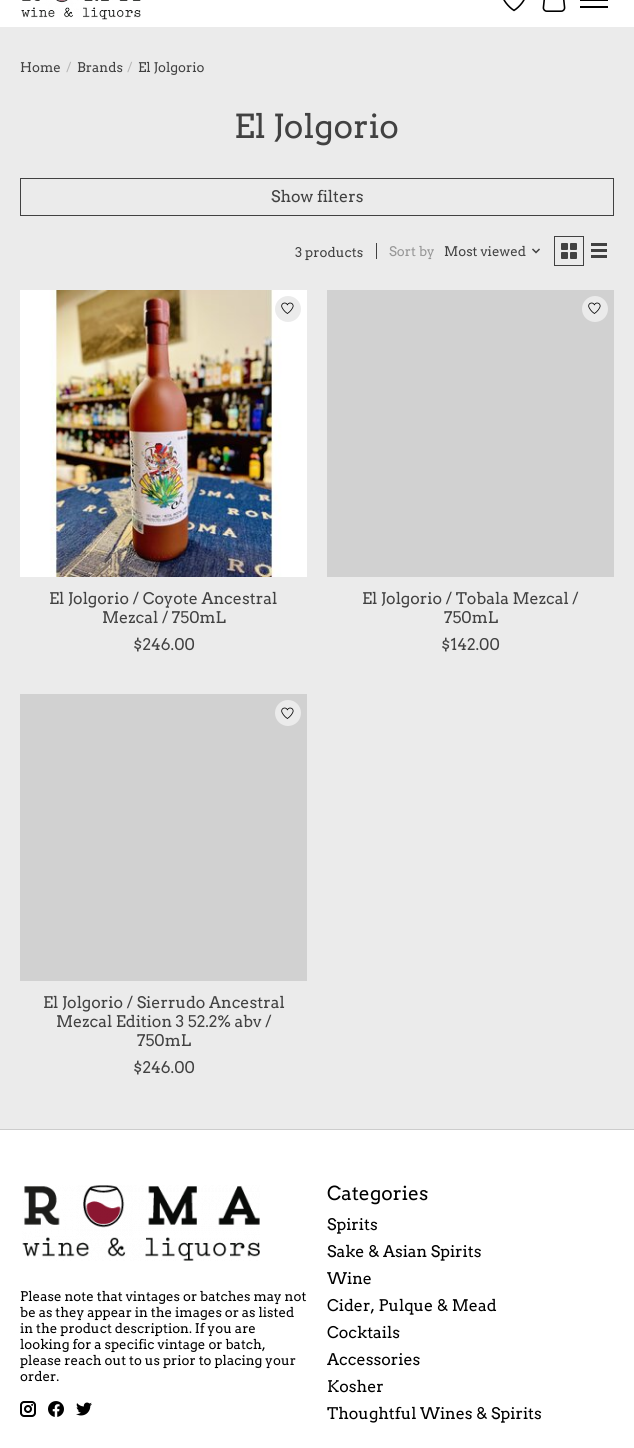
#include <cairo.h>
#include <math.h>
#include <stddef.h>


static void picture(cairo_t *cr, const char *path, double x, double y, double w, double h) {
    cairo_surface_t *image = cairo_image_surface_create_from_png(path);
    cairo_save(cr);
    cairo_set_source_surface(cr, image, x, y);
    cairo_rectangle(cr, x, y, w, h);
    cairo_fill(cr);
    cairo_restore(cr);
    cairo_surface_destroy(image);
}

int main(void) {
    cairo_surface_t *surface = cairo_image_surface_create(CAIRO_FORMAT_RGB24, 634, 1448);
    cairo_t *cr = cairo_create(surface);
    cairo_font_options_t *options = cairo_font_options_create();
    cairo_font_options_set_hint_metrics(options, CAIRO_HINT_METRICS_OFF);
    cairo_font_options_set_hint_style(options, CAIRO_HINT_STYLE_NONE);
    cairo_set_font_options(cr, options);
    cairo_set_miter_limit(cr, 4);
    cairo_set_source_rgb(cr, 0.918, 0.918, 0.918);
    cairo_paint(cr);
    cairo_set_source_rgb(cr, 1, 1, 1);
    cairo_rectangle(cr, 0, 0, 634, 27);
    cairo_fill(cr);
    picture(cr, "img1.png", 21, 0, 120, 20);
    picture(cr, "img2.png", 503, 0, 22, 12);
    picture(cr, "img3.png", 542, 0, 24, 12);
    cairo_set_source_rgb(cr, 0, 0, 0);
    cairo_rectangle(cr, 580, 0, 28, 1);
    cairo_fill(cr);
    cairo_rectangle(cr, 580, 6, 28, 2);
    cairo_fill(cr);
    cairo_select_font_face(cr, "Arvo", CAIRO_FONT_SLANT_NORMAL, CAIRO_FONT_WEIGHT_NORMAL);
    cairo_set_font_size(cr, 13.3);
    cairo_set_source_rgb(cr, 0.255, 0.255, 0.255);
    cairo_move_to(cr, 20, 72);
    cairo_show_text(cr, "Home");
    cairo_set_source_rgb(cr, 0.718, 0.718, 0.718);
    cairo_move_to(cr, 66, 72);
    cairo_show_text(cr, "/");
    cairo_set_source_rgb(cr, 0.255, 0.255, 0.255);
    cairo_move_to(cr, 77, 72);
    cairo_show_text(cr, "Brands");
    cairo_set_source_rgb(cr, 0.718, 0.718, 0.718);
    cairo_move_to(cr, 127, 72);
    cairo_show_text(cr, "/");
    cairo_set_source_rgb(cr, 0.255, 0.255, 0.255);
    cairo_move_to(cr, 138, 72);
    cairo_show_text(cr, "El Jolgorio");
    cairo_set_font_size(cr, 33);
    cairo_move_to(cr, 234, 138);
    cairo_show_text(cr, "El Jolgorio");
    cairo_rectangle(cr, 20.5, 178.5, 593, 37);
    cairo_set_line_width(cr, 1);
    cairo_stroke(cr);
    cairo_set_font_size(cr, 16);
    cairo_move_to(cr, 271, 202);
    cairo_show_text(cr, "Show filters");
    cairo_set_font_size(cr, 13.3);
    cairo_move_to(cr, 295, 257);
    cairo_show_text(cr, "3 products");
    cairo_rectangle(cr, 376, 243, 1, 16);
    cairo_fill(cr);
    cairo_set_source_rgb(cr, 0.588, 0.588, 0.588);
    cairo_move_to(cr, 389, 256);
    cairo_show_text(cr, "Sort by");
    cairo_set_source_rgb(cr, 0.255, 0.255, 0.255);
    cairo_move_to(cr, 444, 256);
    cairo_show_text(cr, "Most viewed");
    picture(cr, "img4.png", 532, 248, 8, 6);
    cairo_rectangle(cr, 554.5, 236.5, 29, 29);
    cairo_stroke(cr);
    picture(cr, "img5.png", 561, 243, 16, 16);
    cairo_rectangle(cr, 591, 243, 16, 3);
    cairo_fill(cr);
    cairo_rectangle(cr, 591, 249, 16, 3);
    cairo_fill(cr);
    cairo_rectangle(cr, 591, 255, 16, 3);
    cairo_fill(cr);
    picture(cr, "img6.png", 20, 290, 287, 287);
    cairo_set_source_rgb(cr, 0.918, 0.918, 0.918);
    cairo_arc(cr, 288, 309, 13, 0, 2 * M_PI);
    cairo_fill(cr);
    picture(cr, "img7.png", 281, 302, 13, 12);
    cairo_set_font_size(cr, 16);
    cairo_set_source_rgb(cr, 0.255, 0.255, 0.255);
    cairo_move_to(cr, 49, 604);
    cairo_show_text(cr, "El Jolgorio / Coyote Ancestral");
    cairo_move_to(cr, 102, 623);
    cairo_show_text(cr, "Mezcal / 750mL");
    cairo_move_to(cr, 133, 650);
    cairo_show_text(cr, "$246.00");
    cairo_set_source_rgb(cr, 0.82, 0.82, 0.82);
    cairo_rectangle(cr, 327, 290, 287, 287);
    cairo_fill(cr);
    cairo_set_source_rgb(cr, 0.918, 0.918, 0.918);
    cairo_arc(cr, 595, 309, 13, 0, 2 * M_PI);
    cairo_fill(cr);
    picture(cr, "img7.png", 588, 302, 13, 12);
    cairo_set_source_rgb(cr, 0.255, 0.255, 0.255);
    cairo_move_to(cr, 362, 604);
    cairo_show_text(cr, "El Jolgorio / Tobala Mezcal /");
    cairo_move_to(cr, 444, 623);
    cairo_show_text(cr, "750mL");
    cairo_move_to(cr, 441, 650);
    cairo_show_text(cr, "$142.00");
    cairo_set_source_rgb(cr, 0.82, 0.82, 0.82);
    cairo_rectangle(cr, 20, 694, 287, 287);
    cairo_fill(cr);
    cairo_set_source_rgb(cr, 0.918, 0.918, 0.918);
    cairo_arc(cr, 288, 713, 13, 0, 2 * M_PI);
    cairo_fill(cr);
    picture(cr, "img7.png", 281, 707, 13, 12);
    cairo_set_source_rgb(cr, 0.255, 0.255, 0.255);
    cairo_move_to(cr, 43, 1008);
    cairo_show_text(cr, "El Jolgorio / Sierrudo Ancestral");
    cairo_move_to(cr, 56, 1027);
    cairo_show_text(cr, "Mezcal Edition 3 52.2% abv /");
    cairo_move_to(cr, 137, 1046);
    cairo_show_text(cr, "750mL");
    cairo_move_to(cr, 133, 1073);
    cairo_show_text(cr, "$246.00");
    cairo_set_source_rgb(cr, 1, 1, 1);
    cairo_rectangle(cr, 0, 1130, 634, 318);
    cairo_fill(cr);
    cairo_set_source_rgb(cr, 0.8, 0.8, 0.8);
    cairo_rectangle(cr, 0, 1129, 634, 1);
    cairo_fill(cr);
    picture(cr, "img8.png", 22, 1185, 238, 76);
    cairo_set_font_size(cr, 13.3);
    cairo_set_source_rgb(cr, 0, 0, 0);
    cairo_move_to(cr, 20, 1301);
    cairo_show_text(cr, "Please note that vintages or batches may not");
    cairo_move_to(cr, 20, 1317);
    cairo_show_text(cr, "be as they appear in the images or as listed");
    cairo_move_to(cr, 20, 1333);
    cairo_show_text(cr, "in the product description. If you are");
    cairo_move_to(cr, 20, 1349);
    cairo_show_text(cr, "looking for a specific vintage or batch,");
    cairo_move_to(cr, 20, 1365);
    cairo_show_text(cr, "please reach out to us prior to placing your");
    cairo_move_to(cr, 20, 1381);
    cairo_show_text(cr, "order.");
    picture(cr, "img9.png", 20, 1401, 16, 16);
    picture(cr, "img10.png", 48, 1401, 16, 16);
    picture(cr, "img11.png", 76, 1402, 16, 14);
    cairo_set_font_size(cr, 19.25);
    cairo_move_to(cr, 327, 1200);
    cairo_show_text(cr, "Categories");
    cairo_set_font_size(cr, 16);
    cairo_move_to(cr, 327, 1230);
    cairo_show_text(cr, "Spirits");
    cairo_move_to(cr, 327, 1257);
    cairo_show_text(cr, "Sake & Asian Spirits");
    cairo_move_to(cr, 327, 1284);
    cairo_show_text(cr, "Wine");
    cairo_move_to(cr, 327, 1311);
    cairo_show_text(cr, "Cider, Pulque & Mead");
    cairo_move_to(cr, 327, 1338);
    cairo_show_text(cr, "Cocktails");
    cairo_move_to(cr, 327, 1365);
    cairo_show_text(cr, "Accessories");
    cairo_move_to(cr, 327, 1392);
    cairo_show_text(cr, "Kosher");
    cairo_move_to(cr, 327, 1419);
    cairo_show_text(cr, "Thoughtful Wines & Spirits");
    cairo_surface_write_to_png(surface, "page.png");
    cairo_font_options_destroy(options);
    cairo_destroy(cr);
    cairo_surface_destroy(surface);
    return 0;
}
